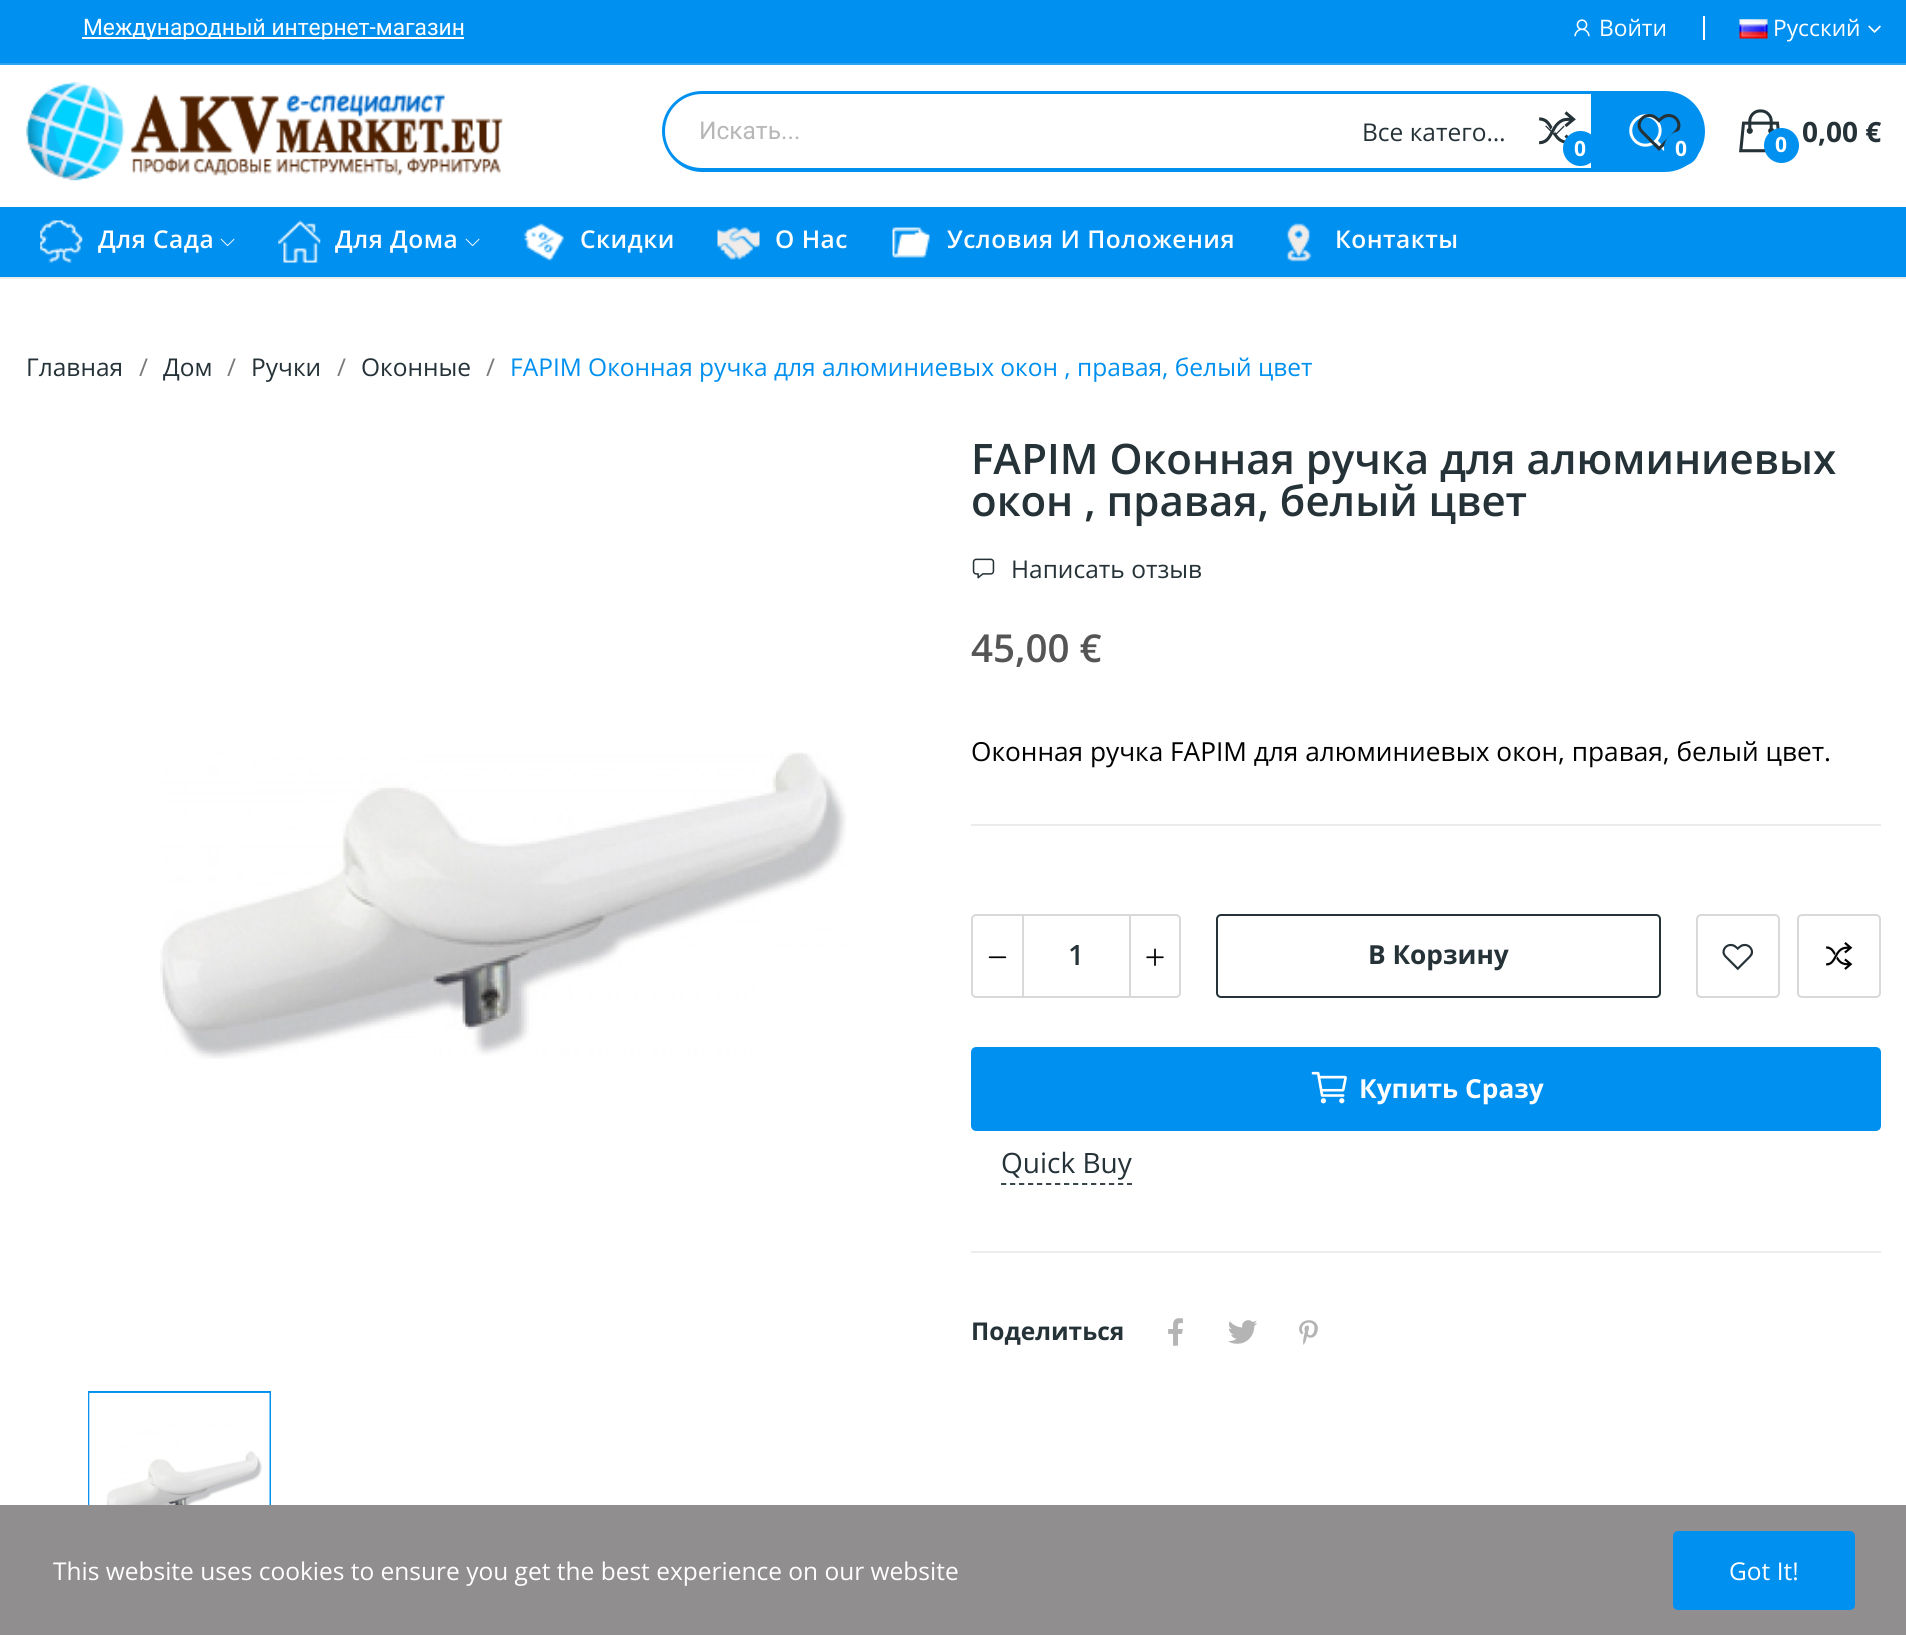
#include <cairo.h>
#include <math.h>
#include <stddef.h>


static void spaced_text(cairo_t *cr, double x, double y, const char *s, double letter, double word) {
    cairo_move_to(cr, x, y);
    while (*s) {
        char ch[5] = {0};
        int n = 0;
        do ch[n++] = *s++; while ((*s & 0xC0) == 0x80);
        cairo_show_text(cr, ch);
        cairo_rel_move_to(cr, letter + word * (*ch == ' '), 0);
    }
}

static void round_rect(cairo_t *cr, double x, double y, double w, double h, double r) {
    cairo_new_sub_path(cr);
    cairo_arc(cr, x + w - r, y + h - r, r, 0, M_PI / 2);
    cairo_arc(cr, x + r, y + h - r, r, M_PI / 2, M_PI);
    cairo_arc(cr, x + r, y + r, r, M_PI, 1.5 * M_PI);
    cairo_arc(cr, x + w - r, y + r, r, 1.5 * M_PI, 2 * M_PI);
    cairo_close_path(cr);
}

static void picture(cairo_t *cr, const char *path, double x, double y, double w, double h) {
    cairo_surface_t *image = cairo_image_surface_create_from_png(path);
    cairo_save(cr);
    cairo_set_source_surface(cr, image, x, y);
    cairo_rectangle(cr, x, y, w, h);
    cairo_fill(cr);
    cairo_restore(cr);
    cairo_surface_destroy(image);
}

int main(void) {
    cairo_surface_t *surface = cairo_image_surface_create(CAIRO_FORMAT_RGB24, 1906, 1635);
    cairo_t *cr = cairo_create(surface);
    cairo_font_options_t *options = cairo_font_options_create();
    cairo_font_options_set_hint_metrics(options, CAIRO_HINT_METRICS_OFF);
    cairo_font_options_set_hint_style(options, CAIRO_HINT_STYLE_NONE);
    cairo_set_font_options(cr, options);
    cairo_set_miter_limit(cr, 4);
    cairo_set_source_rgb(cr, 1, 1, 1);
    cairo_paint(cr);
    cairo_set_source_rgb(cr, 0.922, 0.922, 0.922);
    cairo_rectangle(cr, 0, 277, 1906, 2);
    cairo_fill(cr);
    cairo_set_source_rgb(cr, 0, 0.565, 0.941);
    cairo_rectangle(cr, 0, 0, 1906, 63);
    cairo_fill(cr);
    cairo_set_source_rgb(cr, 0.169, 0.639, 0.953);
    cairo_rectangle(cr, 0, 63, 1906, 2);
    cairo_fill(cr);
    cairo_set_source_rgb(cr, 1, 1, 1);
    cairo_rectangle(cr, 82, 37, 382, 2);
    cairo_fill(cr);
    cairo_select_font_face(cr, "Roboto", CAIRO_FONT_SLANT_NORMAL, CAIRO_FONT_WEIGHT_NORMAL);
    cairo_set_font_size(cr, 22.75);
    cairo_move_to(cr, 83, 35);
    cairo_show_text(cr, "Международный интернет-магазин");
    picture(cr, "img1.png", 1574, 19, 16, 18);
    cairo_select_font_face(cr, "Open Sans", CAIRO_FONT_SLANT_NORMAL, CAIRO_FONT_WEIGHT_NORMAL);
    cairo_move_to(cr, 1599, 36);
    cairo_show_text(cr, "Войти");
    cairo_rectangle(cr, 1703, 16, 2, 24);
    cairo_fill(cr);
    picture(cr, "img2.png", 1739, 19, 29, 20);
    cairo_move_to(cr, 1773, 36);
    cairo_show_text(cr, "Русский");
    picture(cr, "img3.png", 1868, 25, 13, 8);
    picture(cr, "img4.png", 26, 82, 477, 99);
    cairo_set_source_rgb(cr, 0, 0.565, 0.941);
    cairo_set_fill_rule(cr, CAIRO_FILL_RULE_EVEN_ODD);
    cairo_new_path(cr);
    cairo_move_to(cr, 702, 91);
    cairo_line_to(cr, 1591, 91);
    cairo_line_to(cr, 1591, 172);
    cairo_line_to(cr, 702, 172);
    cairo_curve_to(cr, 680, 172, 662, 153, 662, 131);
    cairo_curve_to(cr, 662, 109, 680, 91, 702, 91);
    cairo_close_path(cr);
    cairo_move_to(cr, 702, 94);
    cairo_line_to(cr, 1591, 94);
    cairo_line_to(cr, 1591, 168);
    cairo_line_to(cr, 702, 168);
    cairo_curve_to(cr, 681, 168, 665, 152, 665, 131);
    cairo_curve_to(cr, 665, 111, 681, 94, 702, 94);
    cairo_close_path(cr);
    cairo_fill(cr);
    cairo_select_font_face(cr, "Roboto", CAIRO_FONT_SLANT_NORMAL, CAIRO_FONT_WEIGHT_NORMAL);
    cairo_set_font_size(cr, 24.5);
    cairo_set_source_rgb(cr, 0.718, 0.718, 0.718);
    cairo_move_to(cr, 699, 139);
    cairo_show_text(cr, "Искать...");
    cairo_select_font_face(cr, "Open Sans", CAIRO_FONT_SLANT_NORMAL, CAIRO_FONT_WEIGHT_NORMAL);
    cairo_set_source_rgb(cr, 0.145, 0.196, 0.216);
    cairo_move_to(cr, 1362, 141);
    cairo_show_text(cr, "Все катего…");
    picture(cr, "img5.png", 1545, 125, 20, 11);
    cairo_set_source_rgb(cr, 0, 0.565, 0.941);
    cairo_new_path(cr);
    cairo_move_to(cr, 1591, 91);
    cairo_line_to(cr, 1664.5, 91);
    cairo_curve_to(cr, 1687, 91, 1705, 109, 1705, 131.5);
    cairo_curve_to(cr, 1705, 154, 1687, 172, 1664.5, 172);
    cairo_line_to(cr, 1591, 172);
    cairo_close_path(cr);
    cairo_fill(cr);
    picture(cr, "img6.png", 1629, 114, 36, 37);
    picture(cr, "img7.png", 1539, 111, 37, 34);
    cairo_arc(cr, 1580.5, 148.5, 17.5, 0, 2 * M_PI);
    cairo_fill(cr);
    cairo_select_font_face(cr, "Open Sans", CAIRO_FONT_SLANT_NORMAL, CAIRO_FONT_WEIGHT_BOLD);
    cairo_set_font_size(cr, 21);
    cairo_set_source_rgb(cr, 1, 1, 1);
    cairo_move_to(cr, 1574, 156);
    cairo_show_text(cr, "0");
    picture(cr, "img8.png", 1637, 114, 44, 37);
    cairo_set_source_rgb(cr, 0, 0.565, 0.941);
    cairo_arc(cr, 1681.5, 148.5, 17.5, 0, 2 * M_PI);
    cairo_fill(cr);
    cairo_set_source_rgb(cr, 1, 1, 1);
    cairo_move_to(cr, 1675, 156);
    cairo_show_text(cr, "0");
    picture(cr, "img9.png", 1739, 109, 41, 44);
    cairo_set_source_rgb(cr, 0, 0.565, 0.941);
    cairo_arc(cr, 1781.5, 145.5, 17.5, 0, 2 * M_PI);
    cairo_fill(cr);
    cairo_set_source_rgb(cr, 1, 1, 1);
    cairo_move_to(cr, 1775, 152);
    cairo_show_text(cr, "0");
    cairo_set_font_size(cr, 28);
    cairo_set_source_rgb(cr, 0.145, 0.196, 0.216);
    cairo_move_to(cr, 1802, 142);
    cairo_show_text(cr, "0,00 €");
    cairo_set_source_rgb(cr, 0, 0.565, 0.941);
    cairo_rectangle(cr, 0, 207, 1906, 70);
    cairo_fill(cr);
    picture(cr, "img10.png", 40, 220, 43, 43);
    cairo_select_font_face(cr, "Open Sans SemiBold", CAIRO_FONT_SLANT_NORMAL, CAIRO_FONT_WEIGHT_NORMAL);
    cairo_set_font_size(cr, 24.5);
    cairo_set_source_rgb(cr, 1, 1, 1);
    spaced_text(cr, 98, 248, "Для Сада", 0.5, 0);
    picture(cr, "img11.png", 220, 238, 15, 9);
    picture(cr, "img12.png", 278, 220, 43, 43);
    spaced_text(cr, 335, 248, "Для Дома", 0.5, 0);
    picture(cr, "img11.png", 465, 238, 15, 9);
    picture(cr, "img13.png", 523, 223, 41, 38);
    spaced_text(cr, 580, 248, "Скидки", 0.5, 0);
    picture(cr, "img14.png", 717, 227, 43, 33);
    spaced_text(cr, 775, 248, "О Нас", 0.5, 0);
    picture(cr, "img15.png", 892, 227, 38, 31);
    spaced_text(cr, 947, 248, "Условия И Положения", 0.5, 0);
    picture(cr, "img16.png", 1286, 223, 26, 39);
    spaced_text(cr, 1335, 248, "Контакты", 0.5, 0);
    cairo_select_font_face(cr, "Open Sans", CAIRO_FONT_SLANT_NORMAL, CAIRO_FONT_WEIGHT_NORMAL);
    cairo_set_source_rgb(cr, 0.145, 0.196, 0.216);
    cairo_move_to(cr, 26, 376);
    cairo_show_text(cr, "Главная");
    cairo_set_source_rgb(cr, 0.478, 0.478, 0.478);
    cairo_move_to(cr, 139, 376);
    cairo_show_text(cr, "/");
    cairo_set_source_rgb(cr, 0.145, 0.196, 0.216);
    cairo_move_to(cr, 163, 376);
    cairo_show_text(cr, "Дом");
    cairo_set_source_rgb(cr, 0.478, 0.478, 0.478);
    cairo_move_to(cr, 227, 376);
    cairo_show_text(cr, "/");
    cairo_set_source_rgb(cr, 0.145, 0.196, 0.216);
    cairo_move_to(cr, 251, 376);
    cairo_show_text(cr, "Ручки");
    cairo_set_source_rgb(cr, 0.478, 0.478, 0.478);
    cairo_move_to(cr, 337, 376);
    cairo_show_text(cr, "/");
    cairo_set_source_rgb(cr, 0.145, 0.196, 0.216);
    cairo_move_to(cr, 361, 376);
    cairo_show_text(cr, "Оконные");
    cairo_set_source_rgb(cr, 0.478, 0.478, 0.478);
    cairo_move_to(cr, 486, 376);
    cairo_show_text(cr, "/");
    cairo_set_source_rgb(cr, 0, 0.565, 0.941);
    cairo_move_to(cr, 510, 376);
    cairo_show_text(cr, "FAPIM Оконная ручка для алюминиевых окон , правая, белый цвет");
    picture(cr, "img17.png", 160, 752, 687, 307);
    cairo_rectangle(cr, 89, 1392, 181, 182);
    cairo_stroke(cr);
    picture(cr, "img18.png", 88, 1392, 182, 113);
    cairo_select_font_face(cr, "Open Sans SemiBold", CAIRO_FONT_SLANT_NORMAL, CAIRO_FONT_WEIGHT_NORMAL);
    cairo_set_font_size(cr, 42);
    cairo_set_source_rgb(cr, 0.145, 0.196, 0.216);
    cairo_move_to(cr, 971, 474);
    cairo_show_text(cr, "FAPIM Оконная ручка для алюминиевых");
    cairo_move_to(cr, 971, 516);
    cairo_show_text(cr, "окон , правая, белый цвет");
    picture(cr, "img19.png", 972, 558, 23, 21);
    cairo_select_font_face(cr, "Open Sans", CAIRO_FONT_SLANT_NORMAL, CAIRO_FONT_WEIGHT_NORMAL);
    cairo_set_font_size(cr, 24.5);
    cairo_move_to(cr, 1011, 578);
    cairo_show_text(cr, "Написать отзыв");
    cairo_select_font_face(cr, "Open Sans SemiBold", CAIRO_FONT_SLANT_NORMAL, CAIRO_FONT_WEIGHT_NORMAL);
    cairo_set_font_size(cr, 38.5);
    cairo_set_source_rgb(cr, 0.333, 0.333, 0.333);
    cairo_move_to(cr, 971, 662);
    cairo_show_text(cr, "45,00 €");
    cairo_set_source_rgb(cr, 0.922, 0.922, 0.922);
    cairo_rectangle(cr, 971, 824, 910, 2);
    cairo_fill(cr);
    cairo_select_font_face(cr, "Open Sans", CAIRO_FONT_SLANT_NORMAL, CAIRO_FONT_WEIGHT_NORMAL);
    cairo_set_font_size(cr, 26.25);
    cairo_set_source_rgb(cr, 0, 0, 0);
    cairo_move_to(cr, 971, 761);
    cairo_show_text(cr, "Оконная ручка FAPIM для алюминиевых окон, правая, белый цвет.");
    cairo_new_path(cr);
    cairo_move_to(cr, 976, 915);
    cairo_line_to(cr, 1023, 915);
    cairo_line_to(cr, 1023, 997);
    cairo_line_to(cr, 976, 997);
    cairo_curve_to(cr, 974, 997, 972, 995, 972, 993);
    cairo_line_to(cr, 972, 919);
    cairo_curve_to(cr, 972, 917, 974, 915, 976, 915);
    cairo_close_path(cr);
    cairo_set_source_rgb(cr, 0.851, 0.851, 0.851);
    cairo_stroke(cr);
    picture(cr, "img20.png", 988, 956, 19, 3);
    cairo_new_path(cr);
    cairo_move_to(cr, 1130, 915);
    cairo_line_to(cr, 1176, 915);
    cairo_curve_to(cr, 1178, 915, 1180, 917, 1180, 919);
    cairo_line_to(cr, 1180, 993);
    cairo_curve_to(cr, 1180, 995, 1178, 997, 1176, 997);
    cairo_line_to(cr, 1130, 997);
    cairo_close_path(cr);
    cairo_stroke(cr);
    picture(cr, "img21.png", 1146, 948, 18, 18);
    cairo_rectangle(cr, 1024, 914, 105, 2);
    cairo_fill(cr);
    cairo_rectangle(cr, 1024, 996, 105, 2);
    cairo_fill(cr);
    cairo_select_font_face(cr, "Open Sans SemiBold", CAIRO_FONT_SLANT_NORMAL, CAIRO_FONT_WEIGHT_NORMAL);
    cairo_set_font_size(cr, 28);
    cairo_set_source_rgb(cr, 0.145, 0.196, 0.216);
    cairo_move_to(cr, 1068, 965);
    cairo_show_text(cr, "1");
    round_rect(cr, 1217, 915, 443, 82, 4);
    cairo_stroke(cr);
    cairo_select_font_face(cr, "Open Sans", CAIRO_FONT_SLANT_NORMAL, CAIRO_FONT_WEIGHT_BOLD);
    cairo_set_font_size(cr, 26.25);
    cairo_move_to(cr, 1368, 964);
    cairo_show_text(cr, "В Корзину");
    round_rect(cr, 1697, 915, 82, 82, 4);
    cairo_set_source_rgb(cr, 0.851, 0.851, 0.851);
    cairo_stroke(cr);
    picture(cr, "img22.png", 1722, 943, 32, 28);
    round_rect(cr, 1798, 915, 82, 82, 4);
    cairo_stroke(cr);
    picture(cr, "img23.png", 1826, 942, 27, 28);
    cairo_set_source_rgb(cr, 0, 0.565, 0.941);
    round_rect(cr, 973, 1049, 906, 80, 3);
    cairo_fill_preserve(cr);
    cairo_set_line_width(cr, 4);
    cairo_stroke(cr);
    picture(cr, "img24.png", 1311, 1071, 36, 33);
    cairo_set_source_rgb(cr, 1, 1, 1);
    cairo_move_to(cr, 1359, 1098);
    cairo_show_text(cr, "Купить Сразу");
    cairo_select_font_face(cr, "Open Sans", CAIRO_FONT_SLANT_NORMAL, CAIRO_FONT_WEIGHT_NORMAL);
    cairo_set_font_size(cr, 28);
    cairo_set_source_rgb(cr, 0.145, 0.196, 0.216);
    cairo_move_to(cr, 1001, 1173);
    cairo_show_text(cr, "Quick Buy");
    cairo_new_path(cr);
    cairo_move_to(cr, 1001, 1184);
    cairo_line_to(cr, 1132, 1184);
    cairo_set_line_width(cr, 1.8);
    cairo_set_dash(cr, (double[]){5.25, 3.75}, 2, 0);
    cairo_stroke(cr);
    cairo_set_source_rgb(cr, 0.922, 0.922, 0.922);
    cairo_rectangle(cr, 971, 1251, 910, 2);
    cairo_fill(cr);
    cairo_select_font_face(cr, "Open Sans", CAIRO_FONT_SLANT_NORMAL, CAIRO_FONT_WEIGHT_BOLD);
    cairo_set_font_size(cr, 24.5);
    cairo_set_source_rgb(cr, 0.145, 0.196, 0.216);
    cairo_move_to(cr, 971, 1340);
    cairo_show_text(cr, "Поделиться");
    picture(cr, "img25.png", 1168, 1318, 15, 28);
    picture(cr, "img26.png", 1228, 1320, 29, 24);
    picture(cr, "img27.png", 1299, 1320, 19, 25);
    cairo_set_source_rgb(cr, 0.565, 0.557, 0.561);
    cairo_rectangle(cr, 0, 1505, 1906, 130);
    cairo_fill(cr);
    cairo_select_font_face(cr, "Open Sans", CAIRO_FONT_SLANT_NORMAL, CAIRO_FONT_WEIGHT_NORMAL);
    cairo_set_source_rgb(cr, 1, 1, 1);
    cairo_move_to(cr, 53, 1580);
    cairo_show_text(cr, "This website uses cookies to ensure you get the best experience on our website");
    cairo_set_source_rgb(cr, 0, 0.565, 0.941);
    round_rect(cr, 1675, 1533, 178, 75, 3);
    cairo_fill_preserve(cr);
    cairo_set_line_width(cr, 4);
    cairo_set_dash(cr, NULL, 0, 0);
    cairo_stroke(cr);
    cairo_set_source_rgb(cr, 1, 1, 1);
    cairo_move_to(cr, 1729, 1580);
    cairo_show_text(cr, "Got It!");
    cairo_surface_write_to_png(surface, "page.png");
    cairo_font_options_destroy(options);
    cairo_destroy(cr);
    cairo_surface_destroy(surface);
    return 0;
}
